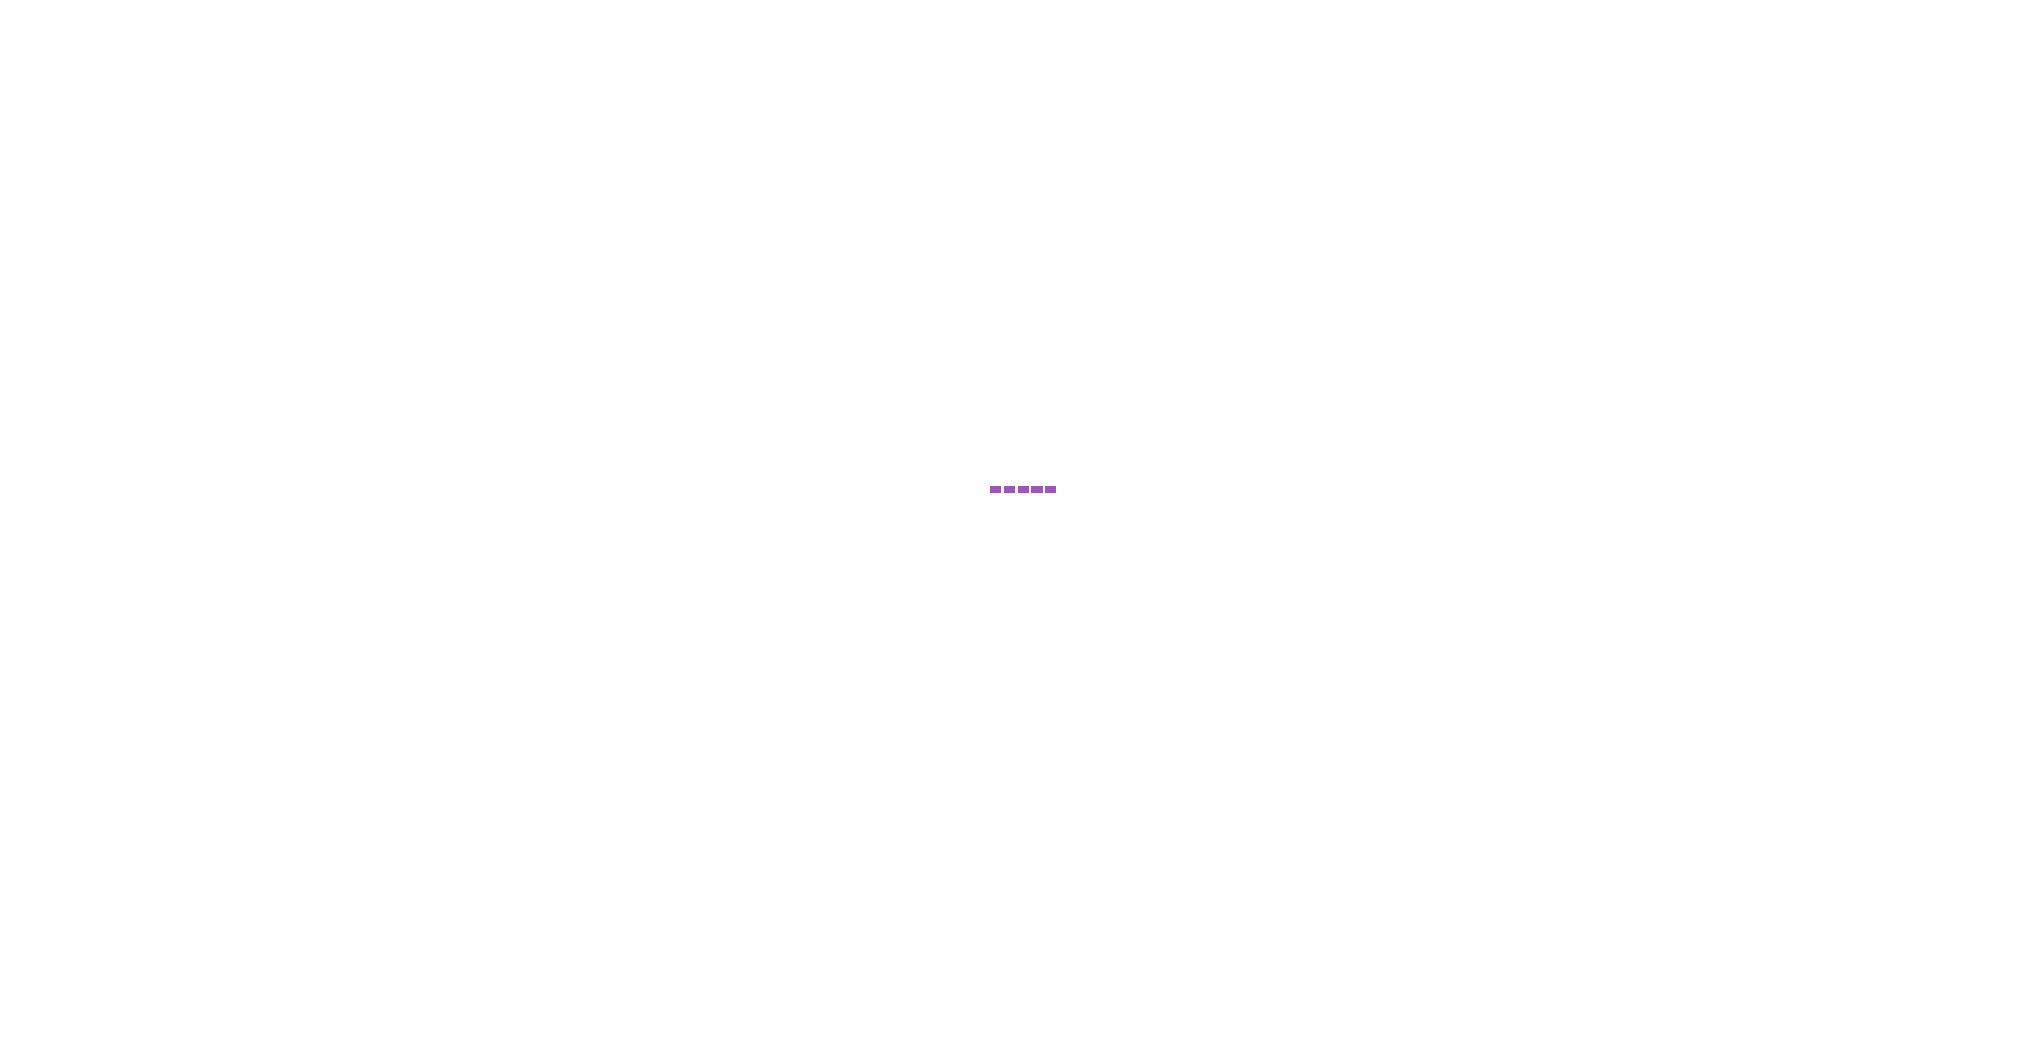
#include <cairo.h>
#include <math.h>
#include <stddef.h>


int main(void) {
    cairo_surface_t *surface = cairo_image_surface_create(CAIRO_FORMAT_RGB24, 2041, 1047);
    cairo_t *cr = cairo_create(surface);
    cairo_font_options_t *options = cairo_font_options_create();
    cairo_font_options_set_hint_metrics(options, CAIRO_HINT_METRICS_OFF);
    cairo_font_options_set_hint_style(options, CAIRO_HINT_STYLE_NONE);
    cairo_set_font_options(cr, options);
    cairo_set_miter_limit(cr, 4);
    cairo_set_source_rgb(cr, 0.996, 0.996, 0.996);
    cairo_paint(cr);
    cairo_set_source_rgb(cr, 0.608, 0.349, 0.714);
    cairo_rectangle(cr, 990, 486, 11, 7);
    cairo_fill(cr);
    cairo_rectangle(cr, 1004, 486, 11, 7);
    cairo_fill(cr);
    cairo_rectangle(cr, 1018, 486, 11, 7);
    cairo_fill(cr);
    cairo_rectangle(cr, 1031, 486, 12, 7);
    cairo_fill(cr);
    cairo_rectangle(cr, 1045, 486, 11, 7);
    cairo_fill(cr);
    cairo_surface_write_to_png(surface, "page.png");
    cairo_font_options_destroy(options);
    cairo_destroy(cr);
    cairo_surface_destroy(surface);
    return 0;
}
